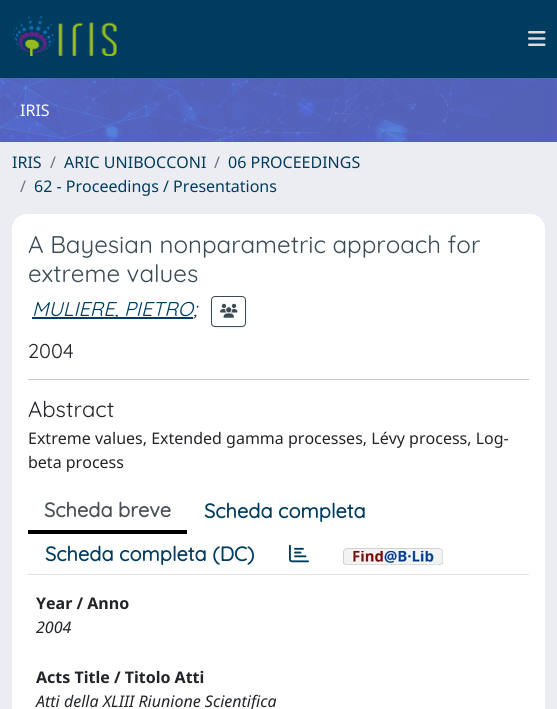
#include <cairo.h>
#include <math.h>
#include <stddef.h>


static void round_rect(cairo_t *cr, double x, double y, double w, double h, double r) {
    cairo_new_sub_path(cr);
    cairo_arc(cr, x + w - r, y + h - r, r, 0, M_PI / 2);
    cairo_arc(cr, x + r, y + h - r, r, M_PI / 2, M_PI);
    cairo_arc(cr, x + r, y + r, r, M_PI, 1.5 * M_PI);
    cairo_arc(cr, x + w - r, y + r, r, 1.5 * M_PI, 2 * M_PI);
    cairo_close_path(cr);
}

static void shadow(cairo_t *cr, double x, double y, double w, double h, double r, double blur, double alpha) {
    cairo_push_group_with_content(cr, CAIRO_CONTENT_ALPHA);
    cairo_set_operator(cr, CAIRO_OPERATOR_SOURCE);
    for (int i = 15; i >= -15 && fmin(w, h) + blur * i / 3 > 0; i -= 2) {
        double e = blur * i / 6;
        cairo_set_source_rgba(cr, 0, 0, 0, alpha * erfc((i - 1) / 8.5) / 2);
        round_rect(cr, x - e, y - e, w + 2 * e, h + 2 * e, fmax(0, fmin(r + e + blur * .6, fmin(w, h) / 2 + e)));
        cairo_fill(cr);
    }
    cairo_pattern_t *soft = cairo_pop_group(cr);
    cairo_mask(cr, soft);
    cairo_pattern_destroy(soft);
}

static void picture(cairo_t *cr, const char *path, double x, double y, double w, double h) {
    cairo_surface_t *image = cairo_image_surface_create_from_png(path);
    cairo_save(cr);
    cairo_set_source_surface(cr, image, x, y);
    cairo_rectangle(cr, x, y, w, h);
    cairo_fill(cr);
    cairo_restore(cr);
    cairo_surface_destroy(image);
}

int main(void) {
    cairo_surface_t *surface = cairo_image_surface_create(CAIRO_FORMAT_RGB24, 557, 709);
    cairo_t *cr = cairo_create(surface);
    cairo_font_options_t *options = cairo_font_options_create();
    cairo_font_options_set_hint_metrics(options, CAIRO_HINT_METRICS_OFF);
    cairo_font_options_set_hint_style(options, CAIRO_HINT_STYLE_NONE);
    cairo_set_font_options(cr, options);
    cairo_set_miter_limit(cr, 4);
    cairo_set_source_rgb(cr, 0.925, 0.929, 0.949);
    cairo_paint(cr);
    cairo_set_source_rgb(cr, 0, 0.235, 0.373);
    cairo_rectangle(cr, 0, 0, 557, 78);
    cairo_fill(cr);
    picture(cr, "img1.png", 12, 16, 105, 40);
    picture(cr, "img2.png", 528, 31, 18, 15);
    picture(cr, "img3.png", 0, 78, 557, 64);
    cairo_select_font_face(cr, "Noto Sans", CAIRO_FONT_SLANT_NORMAL, CAIRO_FONT_WEIGHT_NORMAL);
    cairo_set_font_size(cr, 16);
    cairo_set_source_rgb(cr, 1, 1, 1);
    cairo_move_to(cr, 20, 116);
    cairo_show_text(cr, "IRIS");
    cairo_set_source_rgb(cr, 0, 0.235, 0.373);
    cairo_move_to(cr, 12, 168);
    cairo_show_text(cr, "IRIS");
    cairo_set_source_rgb(cr, 0.424, 0.459, 0.49);
    cairo_move_to(cr, 50, 168);
    cairo_show_text(cr, "/");
    cairo_set_source_rgb(cr, 0, 0.235, 0.373);
    cairo_move_to(cr, 64, 168);
    cairo_show_text(cr, "ARIC UNIBOCCONI");
    cairo_set_source_rgb(cr, 0.424, 0.459, 0.49);
    cairo_move_to(cr, 214, 168);
    cairo_show_text(cr, "/");
    cairo_set_source_rgb(cr, 0, 0.235, 0.373);
    cairo_move_to(cr, 228, 168);
    cairo_show_text(cr, "06 PROCEEDINGS");
    cairo_set_source_rgb(cr, 0.424, 0.459, 0.49);
    cairo_move_to(cr, 20, 192);
    cairo_show_text(cr, "/");
    cairo_set_source_rgb(cr, 0, 0.235, 0.373);
    cairo_move_to(cr, 34, 192);
    cairo_show_text(cr, "62 - Proceedings / Presentations");
    cairo_set_source_rgb(cr, 1, 1, 1);
    round_rect(cr, 12, 214, 533, 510, 15);
    cairo_fill(cr);
    cairo_select_font_face(cr, "Quicksand", CAIRO_FONT_SLANT_NORMAL, CAIRO_FONT_WEIGHT_NORMAL);
    cairo_set_font_size(cr, 24.1);
    cairo_set_source_rgb(cr, 0.227, 0.294, 0.333);
    cairo_move_to(cr, 28, 253);
    cairo_show_text(cr, "A Bayesian nonparametric approach for");
    cairo_move_to(cr, 28, 282);
    cairo_show_text(cr, "extreme values");
    cairo_set_source_rgb(cr, 0, 0.235, 0.373);
    cairo_rectangle(cr, 32, 317, 161, 2);
    cairo_fill(cr);
    cairo_select_font_face(cr, "Quicksand", CAIRO_FONT_SLANT_ITALIC, CAIRO_FONT_WEIGHT_NORMAL);
    cairo_set_font_size(cr, 20);
    cairo_move_to(cr, 32, 316);
    cairo_show_text(cr, "MULIERE, PIETRO");
    cairo_set_source_rgb(cr, 0.129, 0.145, 0.161);
    cairo_move_to(cr, 193, 316);
    cairo_show_text(cr, ";");
    cairo_save(cr);
    cairo_set_fill_rule(cr, CAIRO_FILL_RULE_EVEN_ODD);
    cairo_new_path(cr);
    cairo_move_to(cr, 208, 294);
    cairo_line_to(cr, 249, 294);
    cairo_line_to(cr, 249, 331);
    cairo_line_to(cr, 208, 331);
    cairo_close_path(cr);
    cairo_move_to(cr, 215, 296);
    cairo_line_to(cr, 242, 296);
    cairo_curve_to(cr, 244, 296, 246, 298, 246, 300);
    cairo_line_to(cr, 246, 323);
    cairo_curve_to(cr, 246, 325, 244, 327, 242, 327);
    cairo_line_to(cr, 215, 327);
    cairo_curve_to(cr, 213, 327, 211, 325, 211, 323);
    cairo_line_to(cr, 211, 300);
    cairo_curve_to(cr, 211, 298, 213, 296, 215, 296);
    cairo_close_path(cr);
    cairo_clip(cr);
    cairo_set_source_rgb(cr, 0, 0, 0);
    shadow(cr, 211, 297, 35, 31, 4, 0.5, 0.07);
    cairo_restore(cr);
    round_rect(cr, 211.5, 296.5, 34, 30, 3.5);
    cairo_set_source_rgb(cr, 0.227, 0.294, 0.333);
    cairo_set_line_width(cr, 1);
    cairo_stroke(cr);
    picture(cr, "img4.png", 220, 303, 18, 15);
    cairo_select_font_face(cr, "Quicksand", CAIRO_FONT_SLANT_NORMAL, CAIRO_FONT_WEIGHT_NORMAL);
    cairo_set_source_rgb(cr, 0.129, 0.145, 0.161);
    cairo_move_to(cr, 28, 358);
    cairo_show_text(cr, "2004");
    cairo_set_source_rgb(cr, 0.784, 0.788, 0.792);
    cairo_rectangle(cr, 28, 379, 501, 1);
    cairo_fill(cr);
    cairo_set_font_size(cr, 22);
    cairo_set_source_rgb(cr, 0.129, 0.145, 0.161);
    cairo_move_to(cr, 28, 417);
    cairo_show_text(cr, "Abstract");
    cairo_select_font_face(cr, "Noto Sans", CAIRO_FONT_SLANT_NORMAL, CAIRO_FONT_WEIGHT_NORMAL);
    cairo_set_font_size(cr, 16);
    cairo_move_to(cr, 28, 444);
    cairo_show_text(cr, "Extreme values, Extended gamma processes, Lévy process, Log-");
    cairo_move_to(cr, 28, 468);
    cairo_show_text(cr, "beta process");
    cairo_set_source_rgb(cr, 0.871, 0.886, 0.902);
    cairo_rectangle(cr, 28, 574, 501, 1);
    cairo_fill(cr);
    cairo_set_source_rgb(cr, 0, 0, 0);
    cairo_rectangle(cr, 28, 530, 159, 4);
    cairo_fill(cr);
    cairo_select_font_face(cr, "Quicksand", CAIRO_FONT_SLANT_NORMAL, CAIRO_FONT_WEIGHT_BOLD);
    cairo_set_font_size(cr, 20);
    cairo_set_source_rgb(cr, 0.286, 0.314, 0.341);
    cairo_move_to(cr, 44, 517);
    cairo_show_text(cr, "Scheda breve");
    cairo_set_source_rgb(cr, 0, 0.235, 0.373);
    cairo_move_to(cr, 204, 518);
    cairo_show_text(cr, "Scheda completa");
    cairo_move_to(cr, 45, 561);
    cairo_show_text(cr, "Scheda completa (DC)");
    picture(cr, "img5.png", 289, 544, 20, 19);
    picture(cr, "img6.png", 343, 548, 100, 17);
    cairo_select_font_face(cr, "Noto Sans", CAIRO_FONT_SLANT_NORMAL, CAIRO_FONT_WEIGHT_BOLD);
    cairo_set_font_size(cr, 16);
    cairo_set_source_rgb(cr, 0.129, 0.145, 0.161);
    cairo_move_to(cr, 36, 609);
    cairo_show_text(cr, "Year / Anno");
    cairo_select_font_face(cr, "Noto Sans", CAIRO_FONT_SLANT_ITALIC, CAIRO_FONT_WEIGHT_NORMAL);
    cairo_move_to(cr, 36, 633);
    cairo_show_text(cr, "2004");
    cairo_select_font_face(cr, "Noto Sans", CAIRO_FONT_SLANT_NORMAL, CAIRO_FONT_WEIGHT_BOLD);
    cairo_move_to(cr, 36, 683);
    cairo_show_text(cr, "Acts Title / Titolo Atti");
    cairo_select_font_face(cr, "Noto Sans", CAIRO_FONT_SLANT_ITALIC, CAIRO_FONT_WEIGHT_NORMAL);
    cairo_move_to(cr, 36, 707);
    cairo_show_text(cr, "Atti della XLIII Riunione Scientifica");
    cairo_surface_write_to_png(surface, "page.png");
    cairo_font_options_destroy(options);
    cairo_destroy(cr);
    cairo_surface_destroy(surface);
    return 0;
}
